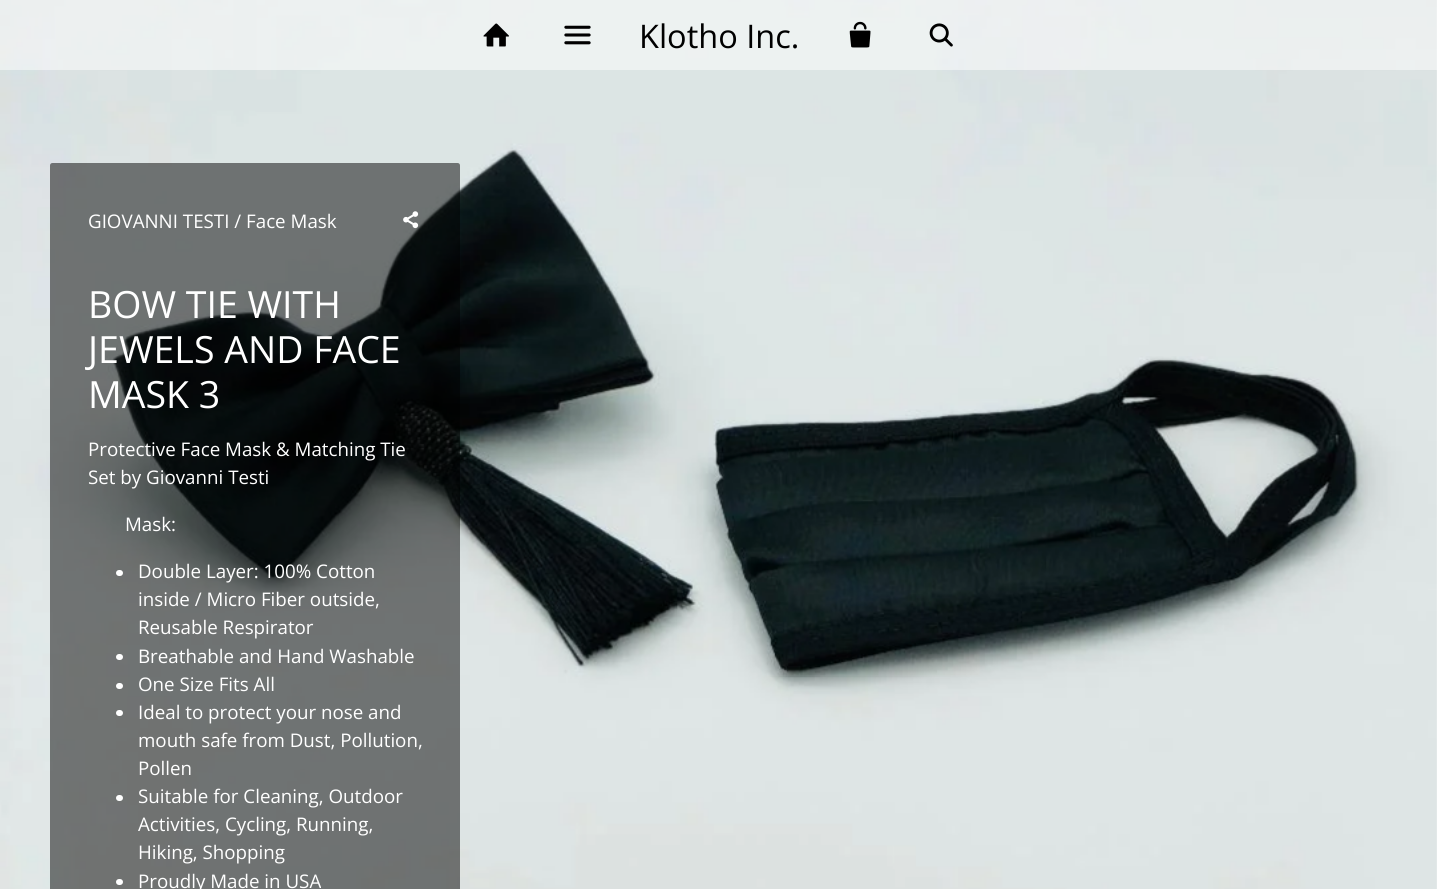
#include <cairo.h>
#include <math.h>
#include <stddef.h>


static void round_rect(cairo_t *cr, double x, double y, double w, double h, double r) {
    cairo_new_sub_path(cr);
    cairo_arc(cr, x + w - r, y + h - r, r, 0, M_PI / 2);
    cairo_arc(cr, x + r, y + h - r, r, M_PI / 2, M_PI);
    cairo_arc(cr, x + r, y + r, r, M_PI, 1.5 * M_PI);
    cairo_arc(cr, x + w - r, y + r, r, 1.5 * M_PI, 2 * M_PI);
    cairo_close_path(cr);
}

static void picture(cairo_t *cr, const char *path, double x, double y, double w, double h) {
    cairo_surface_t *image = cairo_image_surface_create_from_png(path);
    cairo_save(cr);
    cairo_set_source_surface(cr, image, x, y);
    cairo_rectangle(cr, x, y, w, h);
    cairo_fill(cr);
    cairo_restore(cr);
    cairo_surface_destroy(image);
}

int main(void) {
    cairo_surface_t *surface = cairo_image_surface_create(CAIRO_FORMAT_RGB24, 1437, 889);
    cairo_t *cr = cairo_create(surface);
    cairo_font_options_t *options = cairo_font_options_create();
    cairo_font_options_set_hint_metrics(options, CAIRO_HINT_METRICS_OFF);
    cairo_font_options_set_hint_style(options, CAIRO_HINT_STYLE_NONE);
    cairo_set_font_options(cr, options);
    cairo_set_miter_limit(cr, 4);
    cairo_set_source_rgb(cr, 1, 1, 1);
    cairo_paint(cr);
    picture(cr, "img1.png", 0, 0, 1437, 889);
    cairo_set_source_rgba(cr, 1, 1, 1, 0.49);
    cairo_rectangle(cr, 0, 0, 1437, 70);
    cairo_fill(cr);
    picture(cr, "img2.png", 483, 23, 26, 24);
    picture(cr, "img3.png", 564, 25, 27, 20);
    cairo_select_font_face(cr, "Open Sans", CAIRO_FONT_SLANT_NORMAL, CAIRO_FONT_WEIGHT_NORMAL);
    cairo_set_font_size(cr, 32.5);
    cairo_set_source_rgb(cr, 0, 0, 0);
    cairo_move_to(cr, 639, 48);
    cairo_show_text(cr, "Klotho Inc.");
    picture(cr, "img4.png", 849, 21, 22, 27);
    picture(cr, "img5.png", 929, 23, 24, 24);
    cairo_set_source_rgba(cr, 0, 0, 0, 0.5);
    cairo_new_path(cr);
    cairo_move_to(cr, 52.5, 163);
    cairo_line_to(cr, 457.5, 163);
    cairo_curve_to(cr, 459, 163, 460, 164, 460, 165.5);
    cairo_line_to(cr, 460, 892);
    cairo_line_to(cr, 50, 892);
    cairo_line_to(cr, 50, 165.5);
    cairo_curve_to(cr, 50, 164, 51, 163, 52.5, 163);
    cairo_close_path(cr);
    cairo_fill(cr);
    cairo_set_font_size(cr, 18.75);
    cairo_set_source_rgb(cr, 1, 1, 1);
    cairo_move_to(cr, 88, 228);
    cairo_show_text(cr, "GIOVANNI TESTI / Face Mask");
    picture(cr, "img6.png", 403, 211, 16, 18);
    cairo_set_font_size(cr, 37.5);
    cairo_move_to(cr, 88, 318);
    cairo_show_text(cr, "BOW TIE WITH");
    cairo_move_to(cr, 88, 363);
    cairo_show_text(cr, "JEWELS AND FACE");
    cairo_move_to(cr, 88, 408);
    cairo_show_text(cr, "MASK 3");
    cairo_set_font_size(cr, 18.75);
    cairo_move_to(cr, 88, 456);
    cairo_show_text(cr, "Protective Face Mask & Matching Tie");
    cairo_move_to(cr, 88, 484);
    cairo_show_text(cr, "Set by Giovanni Testi");
    cairo_move_to(cr, 125, 531);
    cairo_show_text(cr, "Mask:");
    round_rect(cr, 116, 570, 7, 6, 3);
    cairo_fill(cr);
    cairo_move_to(cr, 138, 578);
    cairo_show_text(cr, "Double Layer: 100% Cotton");
    cairo_move_to(cr, 138, 606);
    cairo_show_text(cr, "inside / Micro Fiber outside,");
    cairo_move_to(cr, 138, 634);
    cairo_show_text(cr, "Reusable Respirator");
    round_rect(cr, 116, 654, 7, 6, 3);
    cairo_fill(cr);
    cairo_move_to(cr, 138, 663);
    cairo_show_text(cr, "Breathable and Hand Washable");
    round_rect(cr, 116, 683, 7, 6, 3);
    cairo_fill(cr);
    cairo_move_to(cr, 138, 691);
    cairo_show_text(cr, "One Size Fits All");
    round_rect(cr, 116, 710, 7, 6, 3);
    cairo_fill(cr);
    cairo_move_to(cr, 138, 719);
    cairo_show_text(cr, "Ideal to protect your nose and");
    cairo_move_to(cr, 138, 747);
    cairo_show_text(cr, "mouth safe from Dust, Pollution,");
    cairo_move_to(cr, 138, 775);
    cairo_show_text(cr, "Pollen");
    round_rect(cr, 116, 795, 7, 6, 3);
    cairo_fill(cr);
    cairo_move_to(cr, 138, 803);
    cairo_show_text(cr, "Suitable for Cleaning, Outdoor");
    cairo_move_to(cr, 138, 831);
    cairo_show_text(cr, "Activities, Cycling, Running,");
    cairo_move_to(cr, 138, 859);
    cairo_show_text(cr, "Hiking, Shopping");
    round_rect(cr, 116, 879, 7, 6, 3);
    cairo_fill(cr);
    cairo_move_to(cr, 138, 888);
    cairo_show_text(cr, "Proudly Made in USA");
    cairo_surface_write_to_png(surface, "page.png");
    cairo_font_options_destroy(options);
    cairo_destroy(cr);
    cairo_surface_destroy(surface);
    return 0;
}
